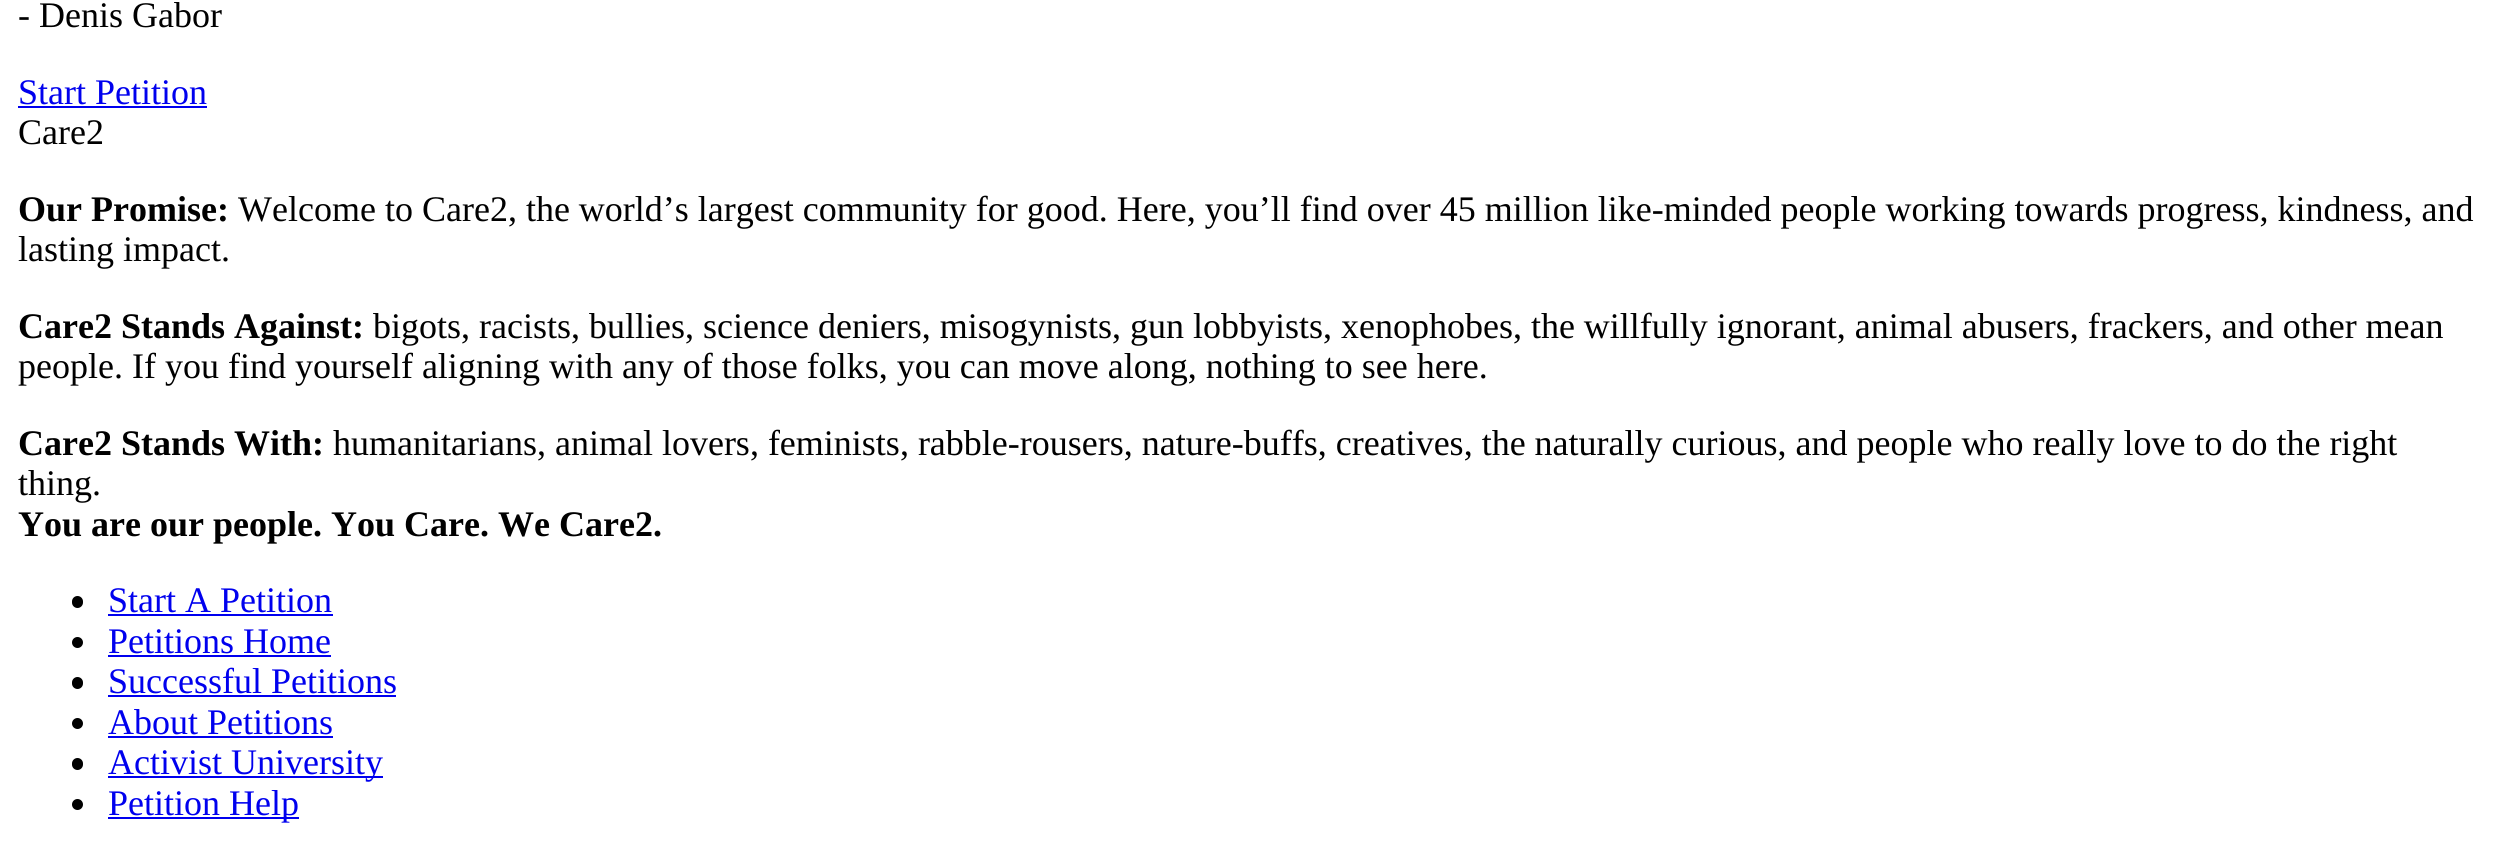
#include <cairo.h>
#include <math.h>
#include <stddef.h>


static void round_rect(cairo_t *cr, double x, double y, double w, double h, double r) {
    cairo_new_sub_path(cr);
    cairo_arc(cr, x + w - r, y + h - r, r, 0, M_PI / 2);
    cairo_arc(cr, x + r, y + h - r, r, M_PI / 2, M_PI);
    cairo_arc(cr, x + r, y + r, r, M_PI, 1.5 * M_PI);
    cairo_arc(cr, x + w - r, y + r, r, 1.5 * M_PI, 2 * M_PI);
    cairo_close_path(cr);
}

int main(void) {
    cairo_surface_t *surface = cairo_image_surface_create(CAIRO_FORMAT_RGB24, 2506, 857);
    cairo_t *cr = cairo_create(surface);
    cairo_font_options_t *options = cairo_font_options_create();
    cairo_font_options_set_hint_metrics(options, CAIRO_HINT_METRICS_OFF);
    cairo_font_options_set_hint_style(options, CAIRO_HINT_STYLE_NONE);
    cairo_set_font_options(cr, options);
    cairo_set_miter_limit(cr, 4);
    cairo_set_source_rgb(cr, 1, 1, 1);
    cairo_paint(cr);
    cairo_select_font_face(cr, "Liberation Serif", CAIRO_FONT_SLANT_NORMAL, CAIRO_FONT_WEIGHT_NORMAL);
    cairo_set_font_size(cr, 36);
    cairo_set_source_rgb(cr, 0, 0, 0);
    cairo_move_to(cr, 18, 27);
    cairo_show_text(cr, "- Denis Gabor");
    cairo_set_source_rgb(cr, 0, 0, 0.933);
    cairo_move_to(cr, 18, 104);
    cairo_show_text(cr, "Start Petition");
    cairo_rectangle(cr, 18, 106, 189, 2);
    cairo_fill(cr);
    cairo_set_source_rgb(cr, 0, 0, 0);
    cairo_move_to(cr, 18, 144);
    cairo_show_text(cr, "Care2");
    cairo_select_font_face(cr, "Liberation Serif", CAIRO_FONT_SLANT_NORMAL, CAIRO_FONT_WEIGHT_BOLD);
    cairo_move_to(cr, 18, 221);
    cairo_show_text(cr, "Our Promise:");
    cairo_select_font_face(cr, "Liberation Serif", CAIRO_FONT_SLANT_NORMAL, CAIRO_FONT_WEIGHT_NORMAL);
    cairo_move_to(cr, 238, 221);
    cairo_show_text(cr, "Welcome to Care2, the world’s largest community for good. Here, you’ll find over 45 million like-minded people working towards progress, kindness, and");
    cairo_move_to(cr, 18, 261);
    cairo_show_text(cr, "lasting impact.");
    cairo_select_font_face(cr, "Liberation Serif", CAIRO_FONT_SLANT_NORMAL, CAIRO_FONT_WEIGHT_BOLD);
    cairo_move_to(cr, 18, 338);
    cairo_show_text(cr, "Care2 Stands Against:");
    cairo_select_font_face(cr, "Liberation Serif", CAIRO_FONT_SLANT_NORMAL, CAIRO_FONT_WEIGHT_NORMAL);
    cairo_move_to(cr, 373, 338);
    cairo_show_text(cr, "bigots, racists, bullies, science deniers, misogynists, gun lobbyists, xenophobes, the willfully ignorant, animal abusers, frackers, and other mean");
    cairo_move_to(cr, 18, 378);
    cairo_show_text(cr, "people. If you find yourself aligning with any of those folks, you can move along, nothing to see here.");
    cairo_select_font_face(cr, "Liberation Serif", CAIRO_FONT_SLANT_NORMAL, CAIRO_FONT_WEIGHT_BOLD);
    cairo_move_to(cr, 18, 455);
    cairo_show_text(cr, "Care2 Stands With:");
    cairo_select_font_face(cr, "Liberation Serif", CAIRO_FONT_SLANT_NORMAL, CAIRO_FONT_WEIGHT_NORMAL);
    cairo_move_to(cr, 333, 455);
    cairo_show_text(cr, "humanitarians, animal lovers, feminists, rabble-rousers, nature-buffs, creatives, the naturally curious, and people who really love to do the right");
    cairo_move_to(cr, 18, 495);
    cairo_show_text(cr, "thing.");
    cairo_select_font_face(cr, "Liberation Serif", CAIRO_FONT_SLANT_NORMAL, CAIRO_FONT_WEIGHT_BOLD);
    cairo_move_to(cr, 18, 536);
    cairo_show_text(cr, "You are our people. You Care. We Care2.");
    round_rect(cr, 72, 596, 11, 12, 5.5);
    cairo_fill(cr);
    cairo_select_font_face(cr, "Liberation Serif", CAIRO_FONT_SLANT_NORMAL, CAIRO_FONT_WEIGHT_NORMAL);
    cairo_set_source_rgb(cr, 0, 0, 0.933);
    cairo_move_to(cr, 108, 612);
    cairo_show_text(cr, "Start A Petition");
    cairo_rectangle(cr, 108, 614, 225, 2);
    cairo_fill(cr);
    cairo_set_source_rgb(cr, 0, 0, 0);
    cairo_arc(cr, 77.5, 642.5, 5.5, 0, 2 * M_PI);
    cairo_fill(cr);
    cairo_set_source_rgb(cr, 0, 0, 0.933);
    cairo_move_to(cr, 108, 653);
    cairo_show_text(cr, "Petitions Home");
    cairo_rectangle(cr, 108, 655, 223, 2);
    cairo_fill(cr);
    cairo_set_source_rgb(cr, 0, 0, 0);
    round_rect(cr, 72, 677, 11, 12, 5.5);
    cairo_fill(cr);
    cairo_set_source_rgb(cr, 0, 0, 0.933);
    cairo_move_to(cr, 108, 693);
    cairo_show_text(cr, "Successful Petitions");
    cairo_rectangle(cr, 108, 695, 288, 2);
    cairo_fill(cr);
    cairo_set_source_rgb(cr, 0, 0, 0);
    cairo_arc(cr, 77.5, 723.5, 5.5, 0, 2 * M_PI);
    cairo_fill(cr);
    cairo_set_source_rgb(cr, 0, 0, 0.933);
    cairo_move_to(cr, 108, 734);
    cairo_show_text(cr, "About Petitions");
    cairo_rectangle(cr, 108, 736, 225, 2);
    cairo_fill(cr);
    cairo_set_source_rgb(cr, 0, 0, 0);
    round_rect(cr, 72, 758, 11, 12, 5.5);
    cairo_fill(cr);
    cairo_set_source_rgb(cr, 0, 0, 0.933);
    cairo_rectangle(cr, 108, 776, 275, 2);
    cairo_fill(cr);
    cairo_move_to(cr, 108, 774);
    cairo_show_text(cr, "Activist University");
    cairo_set_source_rgb(cr, 0, 0, 0);
    cairo_new_path(cr);
    cairo_arc(cr, 77.5, 804.5, 5.5, 0, 2 * M_PI);
    cairo_fill(cr);
    cairo_set_source_rgb(cr, 0, 0, 0.933);
    cairo_rectangle(cr, 108, 817, 191, 2);
    cairo_fill(cr);
    cairo_move_to(cr, 108, 815);
    cairo_show_text(cr, "Petition Help");
    cairo_surface_write_to_png(surface, "page.png");
    cairo_font_options_destroy(options);
    cairo_destroy(cr);
    cairo_surface_destroy(surface);
    return 0;
}
